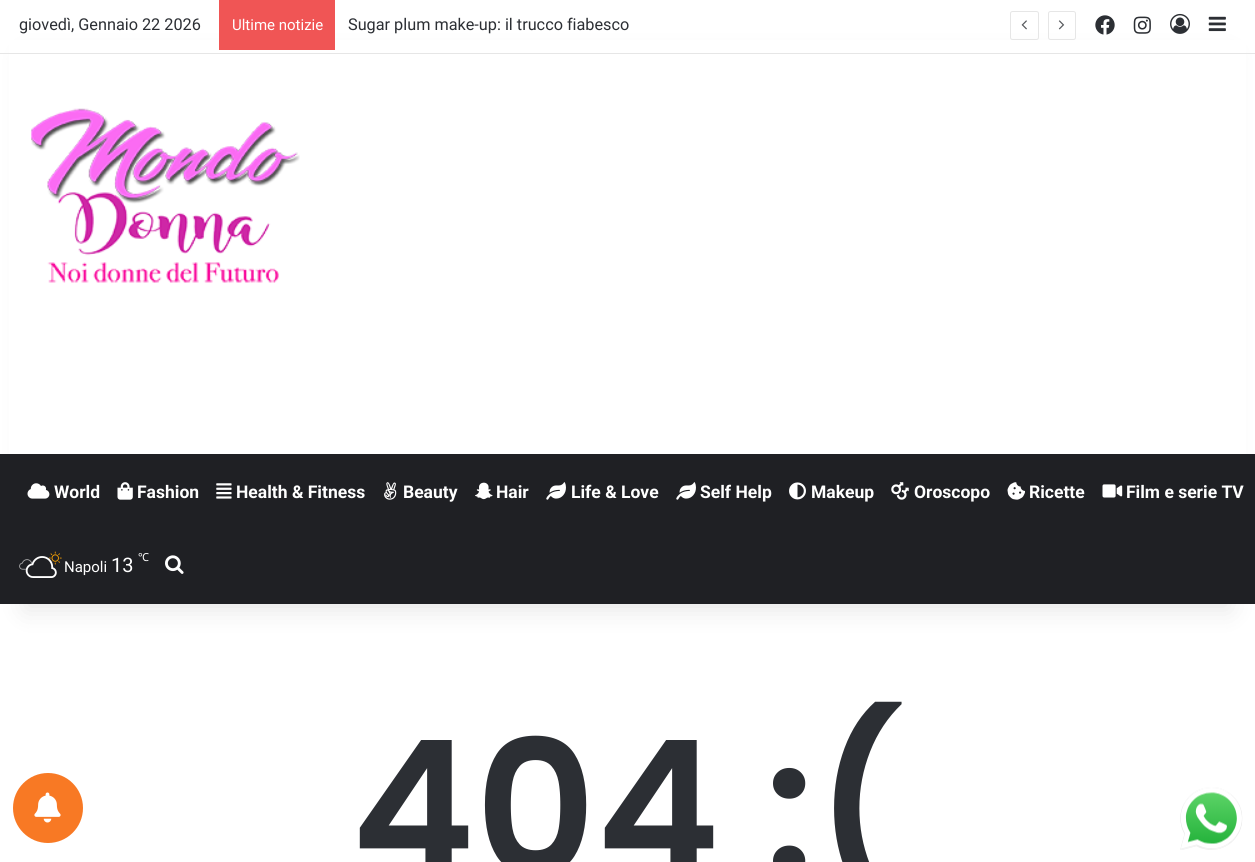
#include <cairo.h>
#include <math.h>
#include <stddef.h>


static void round_rect(cairo_t *cr, double x, double y, double w, double h, double r) {
    cairo_new_sub_path(cr);
    cairo_arc(cr, x + w - r, y + h - r, r, 0, M_PI / 2);
    cairo_arc(cr, x + r, y + h - r, r, M_PI / 2, M_PI);
    cairo_arc(cr, x + r, y + r, r, M_PI, 1.5 * M_PI);
    cairo_arc(cr, x + w - r, y + r, r, 1.5 * M_PI, 2 * M_PI);
    cairo_close_path(cr);
}

static void shadow(cairo_t *cr, double x, double y, double w, double h, double r, double blur, double alpha) {
    cairo_push_group_with_content(cr, CAIRO_CONTENT_ALPHA);
    cairo_set_operator(cr, CAIRO_OPERATOR_SOURCE);
    for (int i = 15; i >= -15 && fmin(w, h) + blur * i / 3 > 0; i -= 2) {
        double e = blur * i / 6;
        cairo_set_source_rgba(cr, 0, 0, 0, alpha * erfc((i - 1) / 8.5) / 2);
        round_rect(cr, x - e, y - e, w + 2 * e, h + 2 * e, fmax(0, fmin(r + e + blur * .6, fmin(w, h) / 2 + e)));
        cairo_fill(cr);
    }
    cairo_pattern_t *soft = cairo_pop_group(cr);
    cairo_mask(cr, soft);
    cairo_pattern_destroy(soft);
}

static void picture(cairo_t *cr, const char *path, double x, double y, double w, double h) {
    cairo_surface_t *image = cairo_image_surface_create_from_png(path);
    cairo_save(cr);
    cairo_set_source_surface(cr, image, x, y);
    cairo_rectangle(cr, x, y, w, h);
    cairo_fill(cr);
    cairo_restore(cr);
    cairo_surface_destroy(image);
}

int main(void) {
    cairo_surface_t *surface = cairo_image_surface_create(CAIRO_FORMAT_RGB24, 1255, 862);
    cairo_t *cr = cairo_create(surface);
    cairo_font_options_t *options = cairo_font_options_create();
    cairo_font_options_set_hint_metrics(options, CAIRO_HINT_METRICS_OFF);
    cairo_font_options_set_hint_style(options, CAIRO_HINT_STYLE_NONE);
    cairo_set_font_options(cr, options);
    cairo_set_miter_limit(cr, 4);
    cairo_set_source_rgb(cr, 1, 1, 1);
    cairo_paint(cr);
    cairo_set_source_rgb(cr, 0, 0, 0);
    shadow(cr, 25, 56, 1205, 554, 0, 12.5, 0.1);
    cairo_set_source_rgb(cr, 1, 1, 1);
    cairo_rectangle(cr, 9, 40, 1237, 414);
    cairo_fill(cr);
    cairo_set_source_rgb(cr, 0.902, 0.902, 0.902);
    cairo_rectangle(cr, 0, 53, 1255, 1);
    cairo_fill(cr);
    cairo_select_font_face(cr, "Roboto", CAIRO_FONT_SLANT_NORMAL, CAIRO_FONT_WEIGHT_NORMAL);
    cairo_set_font_size(cr, 16.25);
    cairo_set_source_rgb(cr, 0.173, 0.184, 0.204);
    cairo_move_to(cr, 19, 30);
    cairo_show_text(cr, "giovedì, Gennaio 22 2026");
    cairo_set_source_rgb(cr, 0.941, 0.333, 0.333);
    cairo_rectangle(cr, 219, 0, 116, 50);
    cairo_fill(cr);
    cairo_set_font_size(cr, 15);
    cairo_set_source_rgb(cr, 1, 1, 1);
    cairo_move_to(cr, 232, 30);
    cairo_show_text(cr, "Ultime notizie");
    cairo_set_font_size(cr, 16.25);
    cairo_set_source_rgb(cr, 0.173, 0.184, 0.204);
    cairo_move_to(cr, 348, 30);
    cairo_show_text(cr, "Sugar plum make-up: il trucco fiabesco");
    round_rect(cr, 1010.5, 11.5, 28, 28, 2);
    cairo_set_source_rgb(cr, 0.902, 0.902, 0.902);
    cairo_set_line_width(cr, 1);
    cairo_stroke(cr);
    picture(cr, "img1.png", 1021, 20, 6, 10);
    round_rect(cr, 1048.5, 11.5, 27, 28, 2);
    cairo_stroke(cr);
    picture(cr, "img2.png", 1058, 20, 7, 10);
    picture(cr, "img3.png", 1095, 15, 20, 20);
    picture(cr, "img4.png", 1133, 16, 18, 18);
    picture(cr, "img5.png", 1170, 13, 20, 21);
    picture(cr, "img6.png", 1208, 16, 18, 16);
    picture(cr, "img7.png", 31, 108, 269, 175);
    cairo_set_source_rgb(cr, 0.122, 0.125, 0.141);
    cairo_rectangle(cr, 0, 454, 1255, 150);
    cairo_fill(cr);
    picture(cr, "img8.png", 27, 483, 23, 16);
    cairo_select_font_face(cr, "Roboto", CAIRO_FONT_SLANT_NORMAL, CAIRO_FONT_WEIGHT_BOLD);
    cairo_set_font_size(cr, 17.5);
    cairo_set_source_rgb(cr, 1, 1, 1);
    cairo_move_to(cr, 54, 498);
    cairo_show_text(cr, "World");
    picture(cr, "img9.png", 117, 482, 16, 18);
    cairo_move_to(cr, 137, 498);
    cairo_show_text(cr, "Fashion");
    picture(cr, "img10.png", 216, 483, 16, 16);
    cairo_move_to(cr, 236, 498);
    cairo_show_text(cr, "Health & Fitness");
    picture(cr, "img11.png", 384, 482, 13, 18);
    cairo_move_to(cr, 403, 498);
    cairo_show_text(cr, "Beauty");
    picture(cr, "img12.png", 475, 482, 18, 18);
    cairo_move_to(cr, 496, 498);
    cairo_show_text(cr, "Hair");
    picture(cr, "img13.png", 546, 482, 20, 18);
    cairo_move_to(cr, 571, 498);
    cairo_show_text(cr, "Life & Love");
    picture(cr, "img13.png", 676, 482, 20, 18);
    cairo_move_to(cr, 700, 498);
    cairo_show_text(cr, "Self Help");
    picture(cr, "img14.png", 789, 482, 17, 18);
    cairo_move_to(cr, 811, 498);
    cairo_show_text(cr, "Makeup");
    picture(cr, "img15.png", 891, 482, 18, 18);
    cairo_move_to(cr, 914, 498);
    cairo_show_text(cr, "Oroscopo");
    picture(cr, "img16.png", 1007, 482, 18, 18);
    cairo_move_to(cr, 1029, 498);
    cairo_show_text(cr, "Ricette");
    picture(cr, "img17.png", 1102, 484, 21, 14);
    cairo_move_to(cr, 1126, 498);
    cairo_show_text(cr, "Film e serie TV");
    picture(cr, "img18.png", 48, 551, 14, 14);
    picture(cr, "img21.png", 19, 559, 13, 11);
    picture(cr, "img20.png", 25, 558, 27, 12);
    picture(cr, "img19.png", 25, 556, 32, 22);
    cairo_select_font_face(cr, "Roboto", CAIRO_FONT_SLANT_NORMAL, CAIRO_FONT_WEIGHT_NORMAL);
    cairo_set_font_size(cr, 15);
    cairo_move_to(cr, 64, 572);
    cairo_show_text(cr, "Napoli");
    cairo_set_font_size(cr, 20);
    cairo_move_to(cr, 111, 572);
    cairo_show_text(cr, "13");
    cairo_select_font_face(cr, "Noto Sans", CAIRO_FONT_SLANT_NORMAL, CAIRO_FONT_WEIGHT_NORMAL);
    cairo_set_font_size(cr, 11);
    cairo_move_to(cr, 138, 561);
    cairo_show_text(cr, "℃");
    picture(cr, "img22.png", 165, 555, 19, 19);
    cairo_select_font_face(cr, "Poppins SemiBold", CAIRO_FONT_SLANT_NORMAL, CAIRO_FONT_WEIGHT_NORMAL);
    cairo_set_font_size(cr, 187.5);
    cairo_set_source_rgb(cr, 0.173, 0.184, 0.204);
    cairo_move_to(cr, 351, 875);
    cairo_show_text(cr, "404 :(");
    cairo_set_source_rgb(cr, 0.969, 0.475, 0.141);
    cairo_new_path(cr);
    cairo_arc(cr, 48, 808, 35, 0, 2 * M_PI);
    cairo_fill(cr);
    picture(cr, "img23.png", 34, 792, 27, 31);
    picture(cr, "img24.png", 1180, 787, 63, 63);
    cairo_surface_write_to_png(surface, "page.png");
    cairo_font_options_destroy(options);
    cairo_destroy(cr);
    cairo_surface_destroy(surface);
    return 0;
}
